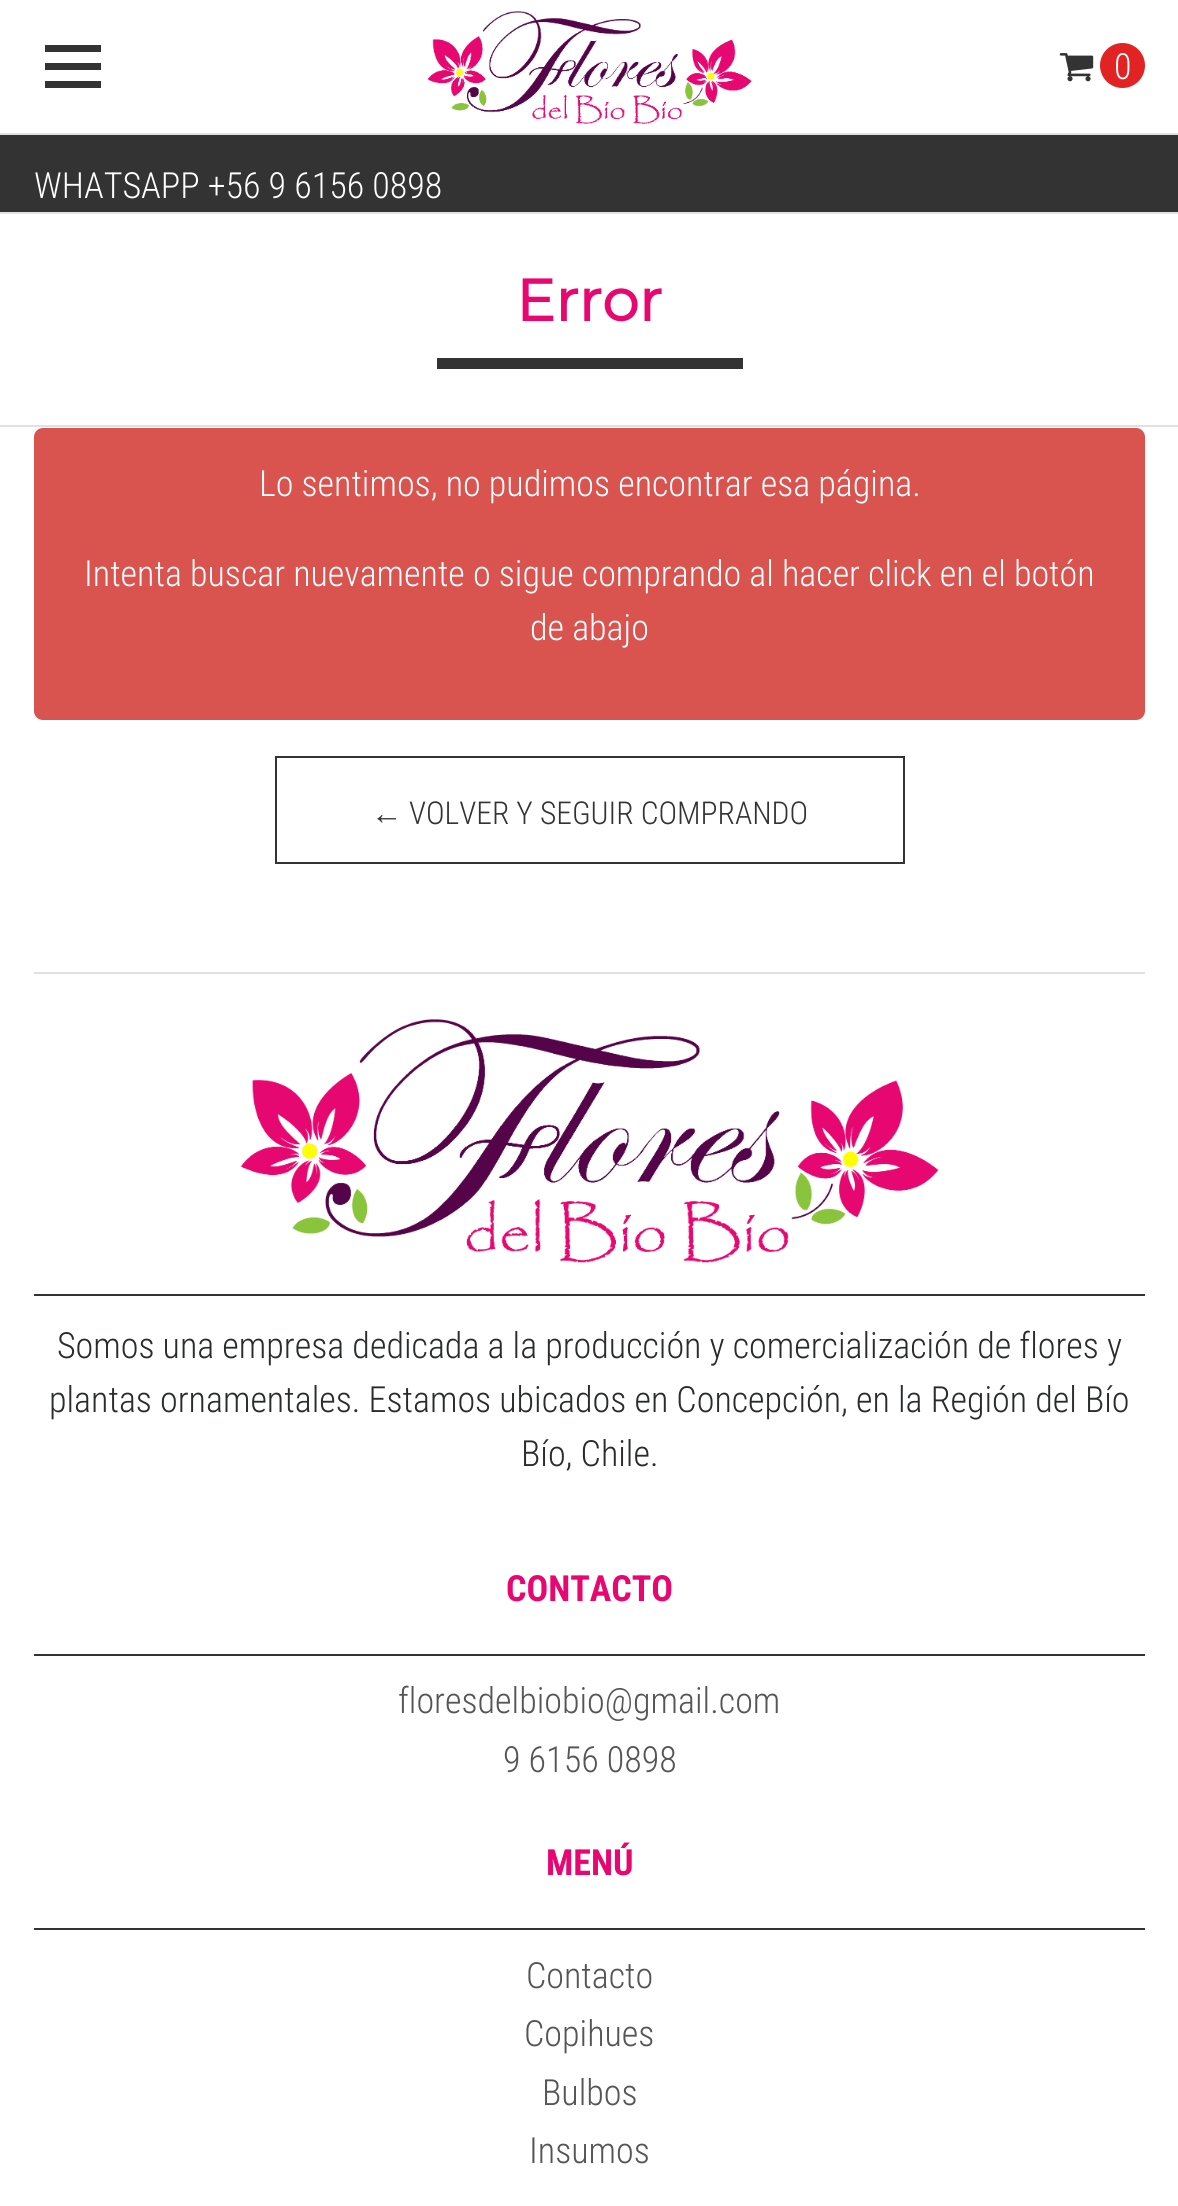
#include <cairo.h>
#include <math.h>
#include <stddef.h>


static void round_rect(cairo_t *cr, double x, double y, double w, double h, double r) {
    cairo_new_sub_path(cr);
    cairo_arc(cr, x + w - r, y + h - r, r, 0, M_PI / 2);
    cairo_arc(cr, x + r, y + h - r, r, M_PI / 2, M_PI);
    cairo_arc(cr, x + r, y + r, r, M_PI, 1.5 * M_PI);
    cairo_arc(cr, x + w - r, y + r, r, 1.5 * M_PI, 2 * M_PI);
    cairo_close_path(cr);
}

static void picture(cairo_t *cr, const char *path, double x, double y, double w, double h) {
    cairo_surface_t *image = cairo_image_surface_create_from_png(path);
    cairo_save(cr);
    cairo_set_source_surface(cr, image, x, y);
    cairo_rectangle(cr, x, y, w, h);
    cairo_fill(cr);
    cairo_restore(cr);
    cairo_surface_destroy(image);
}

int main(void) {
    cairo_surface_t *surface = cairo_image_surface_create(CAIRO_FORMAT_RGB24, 1178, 2206);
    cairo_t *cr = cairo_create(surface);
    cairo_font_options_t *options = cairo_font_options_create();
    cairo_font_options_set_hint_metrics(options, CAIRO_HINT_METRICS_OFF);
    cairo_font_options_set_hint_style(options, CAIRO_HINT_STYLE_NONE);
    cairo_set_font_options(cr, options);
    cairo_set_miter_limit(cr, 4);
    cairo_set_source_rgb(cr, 1, 1, 1);
    cairo_paint(cr);
    cairo_set_source_rgb(cr, 0.2, 0.2, 0.2);
    cairo_rectangle(cr, 45, 45, 56, 7);
    cairo_fill(cr);
    cairo_rectangle(cr, 45, 63, 56, 7);
    cairo_fill(cr);
    cairo_rectangle(cr, 45, 81, 56, 7);
    cairo_fill(cr);
    cairo_set_source_rgb(cr, 0.882, 0.882, 0.882);
    cairo_rectangle(cr, 0, 133, 1178, 2);
    cairo_fill(cr);
    picture(cr, "img1.png", 427, 11, 325, 113);
    picture(cr, "img2.png", 1059, 53, 35, 29);
    cairo_set_source_rgb(cr, 0.886, 0.137, 0.137);
    cairo_arc(cr, 1122.5, 65.5, 22.5, 0, 2 * M_PI);
    cairo_fill(cr);
    cairo_select_font_face(cr, "Roboto Condensed Light", CAIRO_FONT_SLANT_NORMAL, CAIRO_FONT_WEIGHT_NORMAL);
    cairo_set_font_size(cr, 36);
    cairo_set_source_rgb(cr, 1, 1, 1);
    cairo_move_to(cr, 1114, 79);
    cairo_show_text(cr, "0");
    cairo_set_source_rgb(cr, 0.2, 0.2, 0.2);
    cairo_rectangle(cr, 0, 135, 1178, 77);
    cairo_fill(cr);
    cairo_set_source_rgb(cr, 1, 1, 1);
    cairo_move_to(cr, 34, 198);
    cairo_show_text(cr, "WHATSAPP +56 9 6156 0898");
    cairo_set_source_rgb(cr, 0.882, 0.882, 0.882);
    cairo_rectangle(cr, 0, 212, 1178, 2);
    cairo_fill(cr);
    cairo_rectangle(cr, 0, 425, 1178, 2);
    cairo_fill(cr);
    cairo_select_font_face(cr, "Montserrat", CAIRO_FONT_SLANT_NORMAL, CAIRO_FONT_WEIGHT_BOLD);
    cairo_set_font_size(cr, 58.5);
    cairo_set_source_rgb(cr, 0.91, 0.027, 0.443);
    cairo_move_to(cr, 516, 321);
    cairo_show_text(cr, "Error");
    cairo_set_source_rgb(cr, 0.2, 0.2, 0.2);
    cairo_rectangle(cr, 437, 358, 306, 11);
    cairo_fill(cr);
    cairo_set_source_rgb(cr, 0.851, 0.325, 0.31);
    round_rect(cr, 34, 428, 1111, 292, 9);
    cairo_fill(cr);
    cairo_select_font_face(cr, "Roboto Condensed Light", CAIRO_FONT_SLANT_NORMAL, CAIRO_FONT_WEIGHT_NORMAL);
    cairo_set_font_size(cr, 36);
    cairo_set_source_rgb(cr, 1, 1, 1);
    cairo_move_to(cr, 259, 496);
    cairo_show_text(cr, "Lo sentimos, no pudimos encontrar esa página.");
    cairo_move_to(cr, 84, 586);
    cairo_show_text(cr, "Intenta buscar nuevamente o sigue comprando al hacer click en el botón");
    cairo_move_to(cr, 530, 640);
    cairo_show_text(cr, "de abajo");
    cairo_rectangle(cr, 276, 757, 628, 106);
    cairo_set_source_rgb(cr, 0.2, 0.2, 0.2);
    cairo_stroke(cr);
    cairo_select_font_face(cr, "Liberation Serif", CAIRO_FONT_SLANT_NORMAL, CAIRO_FONT_WEIGHT_NORMAL);
    cairo_set_font_size(cr, 31.5);
    cairo_move_to(cr, 371, 824);
    cairo_show_text(cr, "←");
    cairo_select_font_face(cr, "Roboto Condensed Light", CAIRO_FONT_SLANT_NORMAL, CAIRO_FONT_WEIGHT_NORMAL);
    cairo_move_to(cr, 409, 824);
    cairo_show_text(cr, "VOLVER Y SEGUIR COMPRANDO");
    cairo_set_source_rgb(cr, 0.882, 0.882, 0.882);
    cairo_rectangle(cr, 34, 972, 1111, 2);
    cairo_fill(cr);
    picture(cr, "img3.png", 240, 1019, 699, 244);
    cairo_set_source_rgb(cr, 0.2, 0.2, 0.2);
    cairo_rectangle(cr, 34, 1294, 1111, 2);
    cairo_fill(cr);
    cairo_set_font_size(cr, 36);
    cairo_set_source_rgb(cr, 0.161, 0.169, 0.173);
    cairo_move_to(cr, 57, 1358);
    cairo_show_text(cr, "Somos una empresa dedicada a la producción y comercialización de flores y");
    cairo_move_to(cr, 49, 1412);
    cairo_show_text(cr, "plantas ornamentales. Estamos ubicados en Concepción, en la Región del Bío");
    cairo_move_to(cr, 521, 1466);
    cairo_show_text(cr, "Bío, Chile.");
    cairo_set_source_rgb(cr, 0.2, 0.2, 0.2);
    cairo_rectangle(cr, 34, 1654, 1111, 2);
    cairo_fill(cr);
    cairo_select_font_face(cr, "Roboto Condensed", CAIRO_FONT_SLANT_NORMAL, CAIRO_FONT_WEIGHT_BOLD);
    cairo_set_source_rgb(cr, 0.91, 0.027, 0.443);
    cairo_move_to(cr, 506, 1601);
    cairo_show_text(cr, "CONTACTO");
    cairo_select_font_face(cr, "Roboto Condensed Light", CAIRO_FONT_SLANT_NORMAL, CAIRO_FONT_WEIGHT_NORMAL);
    cairo_set_source_rgb(cr, 0.333, 0.333, 0.333);
    cairo_move_to(cr, 398, 1713);
    cairo_show_text(cr, "floresdelbiobio@gmail.com");
    cairo_move_to(cr, 503, 1772);
    cairo_show_text(cr, "9 6156 0898");
    cairo_set_source_rgb(cr, 0.2, 0.2, 0.2);
    cairo_rectangle(cr, 34, 1928, 1111, 2);
    cairo_fill(cr);
    cairo_select_font_face(cr, "Roboto Condensed", CAIRO_FONT_SLANT_NORMAL, CAIRO_FONT_WEIGHT_BOLD);
    cairo_set_source_rgb(cr, 0.91, 0.027, 0.443);
    cairo_move_to(cr, 546, 1875);
    cairo_show_text(cr, "MENÚ");
    cairo_select_font_face(cr, "Roboto Condensed Light", CAIRO_FONT_SLANT_NORMAL, CAIRO_FONT_WEIGHT_NORMAL);
    cairo_set_source_rgb(cr, 0.333, 0.333, 0.333);
    cairo_move_to(cr, 526, 1988);
    cairo_show_text(cr, "Contacto");
    cairo_move_to(cr, 524, 2046);
    cairo_show_text(cr, "Copihues");
    cairo_move_to(cr, 542, 2105);
    cairo_show_text(cr, "Bulbos");
    cairo_move_to(cr, 529, 2163);
    cairo_show_text(cr, "Insumos");
    cairo_surface_write_to_png(surface, "page.png");
    cairo_font_options_destroy(options);
    cairo_destroy(cr);
    cairo_surface_destroy(surface);
    return 0;
}
